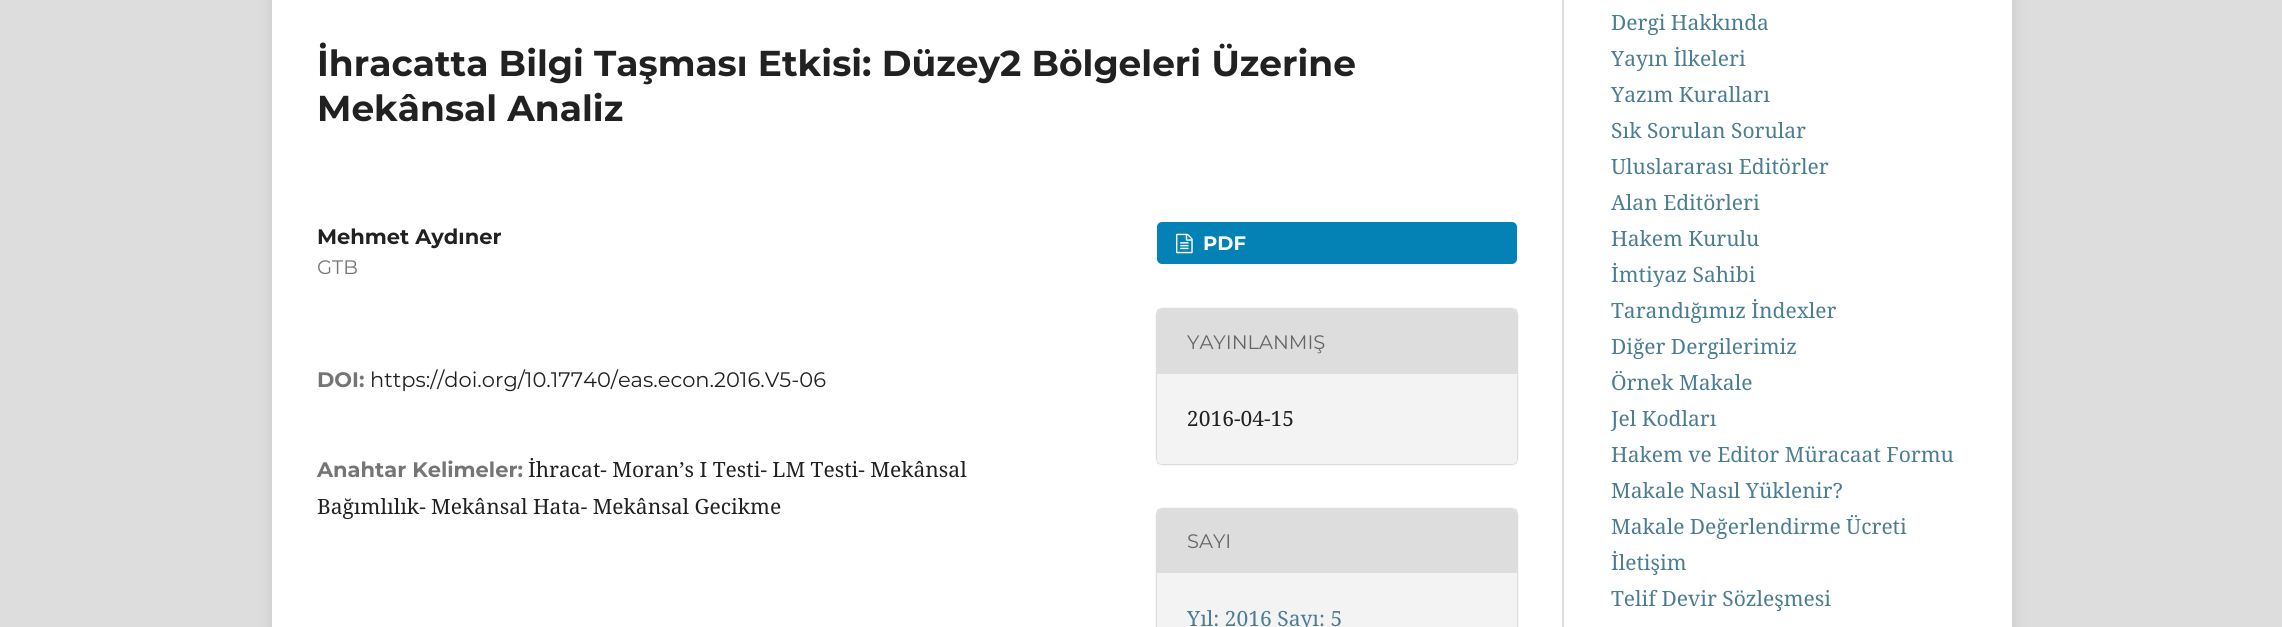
#include <cairo.h>
#include <math.h>
#include <stddef.h>


static void round_rect(cairo_t *cr, double x, double y, double w, double h, double r) {
    cairo_new_sub_path(cr);
    cairo_arc(cr, x + w - r, y + h - r, r, 0, M_PI / 2);
    cairo_arc(cr, x + r, y + h - r, r, M_PI / 2, M_PI);
    cairo_arc(cr, x + r, y + r, r, M_PI, 1.5 * M_PI);
    cairo_arc(cr, x + w - r, y + r, r, 1.5 * M_PI, 2 * M_PI);
    cairo_close_path(cr);
}

static void shadow(cairo_t *cr, double x, double y, double w, double h, double r, double blur, double alpha) {
    cairo_push_group_with_content(cr, CAIRO_CONTENT_ALPHA);
    cairo_set_operator(cr, CAIRO_OPERATOR_SOURCE);
    for (int i = 15; i >= -15 && fmin(w, h) + blur * i / 3 > 0; i -= 2) {
        double e = blur * i / 6;
        cairo_set_source_rgba(cr, 0, 0, 0, alpha * erfc((i - 1) / 8.5) / 2);
        round_rect(cr, x - e, y - e, w + 2 * e, h + 2 * e, fmax(0, fmin(r + e + blur * .6, fmin(w, h) / 2 + e)));
        cairo_fill(cr);
    }
    cairo_pattern_t *soft = cairo_pop_group(cr);
    cairo_mask(cr, soft);
    cairo_pattern_destroy(soft);
}

static void picture(cairo_t *cr, const char *path, double x, double y, double w, double h) {
    cairo_surface_t *image = cairo_image_surface_create_from_png(path);
    cairo_save(cr);
    cairo_set_source_surface(cr, image, x, y);
    cairo_rectangle(cr, x, y, w, h);
    cairo_fill(cr);
    cairo_restore(cr);
    cairo_surface_destroy(image);
}

int main(void) {
    cairo_surface_t *surface = cairo_image_surface_create(CAIRO_FORMAT_RGB24, 2282, 627);
    cairo_t *cr = cairo_create(surface);
    cairo_font_options_t *options = cairo_font_options_create();
    cairo_font_options_set_hint_metrics(options, CAIRO_HINT_METRICS_OFF);
    cairo_font_options_set_hint_style(options, CAIRO_HINT_STYLE_NONE);
    cairo_set_font_options(cr, options);
    cairo_set_miter_limit(cr, 4);
    cairo_set_source_rgb(cr, 0.867, 0.867, 0.867);
    cairo_paint(cr);
    cairo_set_source_rgb(cr, 0, 0, 0);
    shadow(cr, 272, -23, 1740, 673, 0, 7.5, 0.1);
    cairo_set_source_rgb(cr, 1, 1, 1);
    cairo_rectangle(cr, 272, 0, 1740, 627);
    cairo_fill(cr);
    cairo_select_font_face(cr, "Montserrat", CAIRO_FONT_SLANT_NORMAL, CAIRO_FONT_WEIGHT_BOLD);
    cairo_set_font_size(cr, 36);
    cairo_set_source_rgb(cr, 0.129, 0.129, 0.129);
    cairo_move_to(cr, 317, 76);
    cairo_show_text(cr, "İhracatta Bilgi Taşması Etkisi: Düzey2 Bölgeleri Üzerine");
    cairo_move_to(cr, 317, 121);
    cairo_show_text(cr, "Mekânsal Analiz");
    cairo_set_font_size(cr, 21);
    cairo_move_to(cr, 317, 244);
    cairo_show_text(cr, "Mehmet Aydıner");
    cairo_select_font_face(cr, "Montserrat", CAIRO_FONT_SLANT_NORMAL, CAIRO_FONT_WEIGHT_NORMAL);
    cairo_set_font_size(cr, 19.5);
    cairo_set_source_rgb(cr, 0.459, 0.459, 0.459);
    cairo_move_to(cr, 317, 274);
    cairo_show_text(cr, "GTB");
    cairo_select_font_face(cr, "Montserrat", CAIRO_FONT_SLANT_NORMAL, CAIRO_FONT_WEIGHT_BOLD);
    cairo_set_font_size(cr, 21);
    cairo_move_to(cr, 317, 387);
    cairo_show_text(cr, "DOI:");
    cairo_select_font_face(cr, "Montserrat", CAIRO_FONT_SLANT_NORMAL, CAIRO_FONT_WEIGHT_NORMAL);
    cairo_set_source_rgb(cr, 0.129, 0.129, 0.129);
    cairo_move_to(cr, 370, 387);
    cairo_show_text(cr, "https://doi.org/10.17740/eas.econ.2016.V5-06");
    cairo_select_font_face(cr, "Montserrat", CAIRO_FONT_SLANT_NORMAL, CAIRO_FONT_WEIGHT_BOLD);
    cairo_set_source_rgb(cr, 0.459, 0.459, 0.459);
    cairo_move_to(cr, 317, 477);
    cairo_show_text(cr, "Anahtar Kelimeler:");
    cairo_select_font_face(cr, "Noto Serif", CAIRO_FONT_SLANT_NORMAL, CAIRO_FONT_WEIGHT_NORMAL);
    cairo_set_source_rgb(cr, 0.129, 0.129, 0.129);
    cairo_move_to(cr, 528, 477);
    cairo_show_text(cr, "İhracat- Moran’s I Testi- LM Testi- Mekânsal");
    cairo_move_to(cr, 317, 514);
    cairo_show_text(cr, "Bağımlılık- Mekânsal Hata- Mekânsal Gecikme");
    cairo_set_source_rgb(cr, 0.016, 0.51, 0.71);
    round_rect(cr, 1157, 222, 360, 42, 5);
    cairo_fill(cr);
    picture(cr, "img1.png", 1176, 233, 17, 21);
    cairo_select_font_face(cr, "Montserrat", CAIRO_FONT_SLANT_NORMAL, CAIRO_FONT_WEIGHT_BOLD);
    cairo_set_font_size(cr, 19.5);
    cairo_set_source_rgb(cr, 1, 1, 1);
    cairo_move_to(cr, 1203, 250);
    cairo_show_text(cr, "PDF");
    cairo_save(cr);
    cairo_set_fill_rule(cr, CAIRO_FILL_RULE_EVEN_ODD);
    cairo_new_path(cr);
    cairo_move_to(cr, 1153, 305);
    cairo_line_to(cr, 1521, 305);
    cairo_line_to(cr, 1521, 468);
    cairo_line_to(cr, 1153, 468);
    cairo_close_path(cr);
    cairo_move_to(cr, 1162, 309);
    cairo_line_to(cr, 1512, 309);
    cairo_curve_to(cr, 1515, 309, 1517, 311, 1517, 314);
    cairo_line_to(cr, 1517, 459);
    cairo_curve_to(cr, 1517, 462, 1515, 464, 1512, 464);
    cairo_line_to(cr, 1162, 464);
    cairo_curve_to(cr, 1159, 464, 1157, 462, 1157, 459);
    cairo_line_to(cr, 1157, 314);
    cairo_curve_to(cr, 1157, 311, 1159, 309, 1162, 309);
    cairo_close_path(cr);
    cairo_clip(cr);
    cairo_set_source_rgb(cr, 0, 0, 0);
    shadow(cr, 1157, 309, 360, 155, 5, 1, 0.4);
    cairo_restore(cr);
    cairo_set_source_rgba(cr, 0, 0, 0, 0.05);
    cairo_rectangle(cr, 1157, 309, 360, 155);
    cairo_fill(cr);
    cairo_set_source_rgb(cr, 0.867, 0.867, 0.867);
    cairo_new_path(cr);
    cairo_move_to(cr, 1162, 309);
    cairo_line_to(cr, 1512, 309);
    cairo_curve_to(cr, 1515, 309, 1517, 311, 1517, 314);
    cairo_line_to(cr, 1517, 374);
    cairo_line_to(cr, 1157, 374);
    cairo_line_to(cr, 1157, 314);
    cairo_curve_to(cr, 1157, 311, 1159, 309, 1162, 309);
    cairo_close_path(cr);
    cairo_fill(cr);
    cairo_select_font_face(cr, "Montserrat", CAIRO_FONT_SLANT_NORMAL, CAIRO_FONT_WEIGHT_NORMAL);
    cairo_set_source_rgb(cr, 0.4, 0.4, 0.4);
    cairo_move_to(cr, 1187, 349);
    cairo_show_text(cr, "YAYINLANMIŞ");
    cairo_select_font_face(cr, "Noto Serif", CAIRO_FONT_SLANT_NORMAL, CAIRO_FONT_WEIGHT_NORMAL);
    cairo_set_font_size(cr, 21);
    cairo_set_source_rgb(cr, 0.129, 0.129, 0.129);
    cairo_move_to(cr, 1187, 426);
    cairo_show_text(cr, "2016-04-15");
    cairo_save(cr);
    cairo_set_fill_rule(cr, CAIRO_FILL_RULE_EVEN_ODD);
    cairo_new_path(cr);
    cairo_move_to(cr, 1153, 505);
    cairo_line_to(cr, 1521, 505);
    cairo_line_to(cr, 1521, 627);
    cairo_line_to(cr, 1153, 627);
    cairo_close_path(cr);
    cairo_move_to(cr, 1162, 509);
    cairo_line_to(cr, 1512, 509);
    cairo_curve_to(cr, 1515, 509, 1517, 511, 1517, 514);
    cairo_line_to(cr, 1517, 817);
    cairo_curve_to(cr, 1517, 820, 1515, 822, 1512, 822);
    cairo_line_to(cr, 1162, 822);
    cairo_curve_to(cr, 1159, 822, 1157, 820, 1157, 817);
    cairo_line_to(cr, 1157, 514);
    cairo_curve_to(cr, 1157, 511, 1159, 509, 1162, 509);
    cairo_close_path(cr);
    cairo_clip(cr);
    cairo_set_source_rgb(cr, 0, 0, 0);
    shadow(cr, 1157, 509, 360, 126, 5, 1, 0.4);
    cairo_restore(cr);
    cairo_set_source_rgba(cr, 0, 0, 0, 0.05);
    cairo_rectangle(cr, 1157, 509, 360, 118);
    cairo_fill(cr);
    cairo_set_source_rgb(cr, 0.867, 0.867, 0.867);
    cairo_new_path(cr);
    cairo_move_to(cr, 1162, 509);
    cairo_line_to(cr, 1512, 509);
    cairo_curve_to(cr, 1515, 509, 1517, 511, 1517, 514);
    cairo_line_to(cr, 1517, 573);
    cairo_line_to(cr, 1157, 573);
    cairo_line_to(cr, 1157, 514);
    cairo_curve_to(cr, 1157, 511, 1159, 509, 1162, 509);
    cairo_close_path(cr);
    cairo_fill(cr);
    cairo_select_font_face(cr, "Montserrat", CAIRO_FONT_SLANT_NORMAL, CAIRO_FONT_WEIGHT_NORMAL);
    cairo_set_font_size(cr, 19.5);
    cairo_set_source_rgb(cr, 0.4, 0.4, 0.4);
    cairo_move_to(cr, 1187, 548);
    cairo_show_text(cr, "SAYI");
    cairo_select_font_face(cr, "Noto Serif", CAIRO_FONT_SLANT_NORMAL, CAIRO_FONT_WEIGHT_NORMAL);
    cairo_set_font_size(cr, 21);
    cairo_set_source_rgb(cr, 0.294, 0.49, 0.573);
    cairo_move_to(cr, 1187, 626);
    cairo_show_text(cr, "Yıl: 2016 Sayı: 5");
    cairo_set_source_rgb(cr, 0.867, 0.867, 0.867);
    cairo_rectangle(cr, 1562, 0, 2, 627);
    cairo_fill(cr);
    cairo_set_source_rgb(cr, 0.294, 0.49, 0.573);
    cairo_move_to(cr, 1611, 30);
    cairo_show_text(cr, "Dergi Hakkında");
    cairo_move_to(cr, 1611, 66);
    cairo_show_text(cr, "Yayın İlkeleri");
    cairo_move_to(cr, 1611, 102);
    cairo_show_text(cr, "Yazım Kuralları");
    cairo_move_to(cr, 1611, 138);
    cairo_show_text(cr, "Sık Sorulan Sorular");
    cairo_move_to(cr, 1611, 174);
    cairo_show_text(cr, "Uluslararası Editörler");
    cairo_move_to(cr, 1611, 210);
    cairo_show_text(cr, "Alan Editörleri");
    cairo_move_to(cr, 1611, 246);
    cairo_show_text(cr, "Hakem Kurulu");
    cairo_move_to(cr, 1611, 282);
    cairo_show_text(cr, "İmtiyaz Sahibi");
    cairo_move_to(cr, 1611, 318);
    cairo_show_text(cr, "Tarandığımız İndexler");
    cairo_move_to(cr, 1611, 354);
    cairo_show_text(cr, "Diğer Dergilerimiz");
    cairo_move_to(cr, 1611, 390);
    cairo_show_text(cr, "Örnek Makale");
    cairo_move_to(cr, 1611, 426);
    cairo_show_text(cr, "Jel Kodları");
    cairo_move_to(cr, 1611, 462);
    cairo_show_text(cr, "Hakem ve Editor Müracaat Formu");
    cairo_move_to(cr, 1611, 498);
    cairo_show_text(cr, "Makale Nasıl Yüklenir?");
    cairo_move_to(cr, 1611, 534);
    cairo_show_text(cr, "Makale Değerlendirme Ücreti");
    cairo_move_to(cr, 1611, 570);
    cairo_show_text(cr, "İletişim");
    cairo_move_to(cr, 1611, 606);
    cairo_show_text(cr, "Telif Devir Sözleşmesi");
    cairo_surface_write_to_png(surface, "page.png");
    cairo_font_options_destroy(options);
    cairo_destroy(cr);
    cairo_surface_destroy(surface);
    return 0;
}
